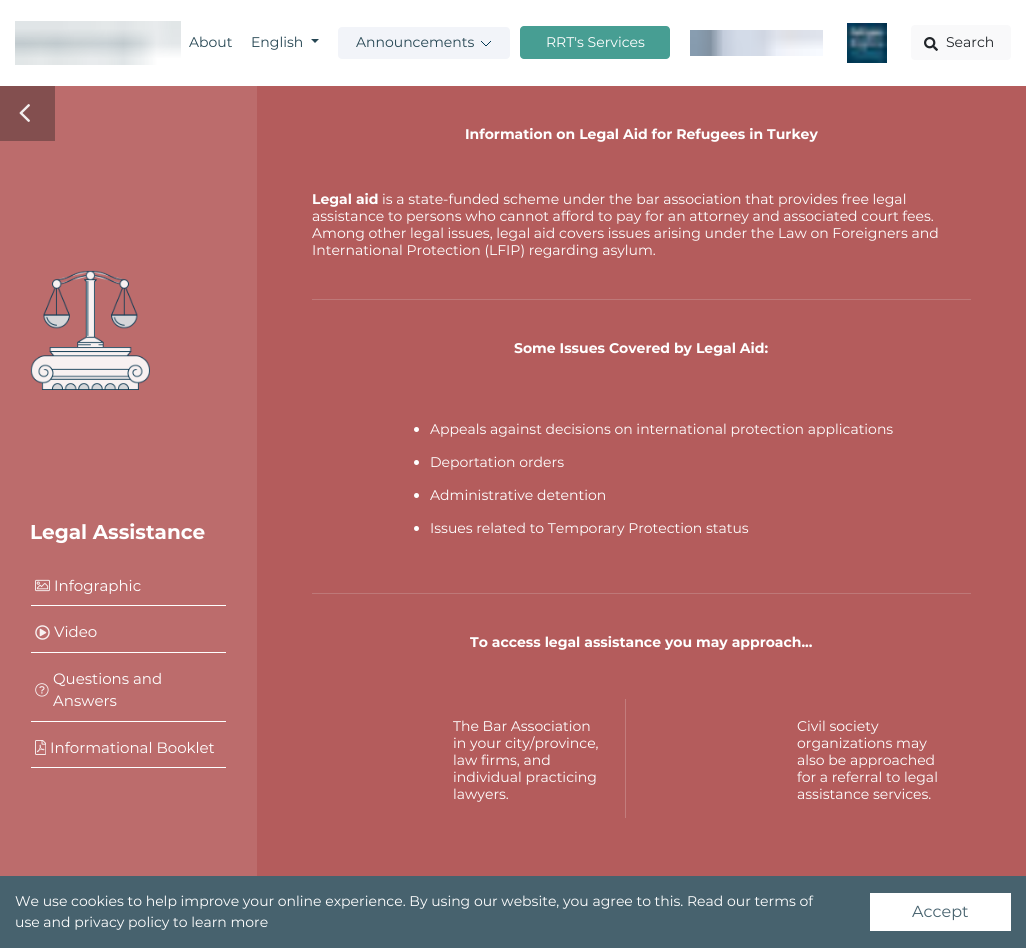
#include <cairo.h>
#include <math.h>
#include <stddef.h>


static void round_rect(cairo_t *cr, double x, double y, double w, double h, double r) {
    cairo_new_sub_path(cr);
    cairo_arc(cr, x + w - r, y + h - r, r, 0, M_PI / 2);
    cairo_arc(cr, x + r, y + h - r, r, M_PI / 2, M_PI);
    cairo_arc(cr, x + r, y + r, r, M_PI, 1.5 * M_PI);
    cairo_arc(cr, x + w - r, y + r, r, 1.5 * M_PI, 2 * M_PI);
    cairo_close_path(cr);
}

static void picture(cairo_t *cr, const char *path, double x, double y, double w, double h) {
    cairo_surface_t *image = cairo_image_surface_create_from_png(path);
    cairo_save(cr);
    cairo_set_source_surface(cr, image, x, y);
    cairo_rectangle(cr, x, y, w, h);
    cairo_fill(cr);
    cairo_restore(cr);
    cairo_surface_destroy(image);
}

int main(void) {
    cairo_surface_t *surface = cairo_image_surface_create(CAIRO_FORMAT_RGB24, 1026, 948);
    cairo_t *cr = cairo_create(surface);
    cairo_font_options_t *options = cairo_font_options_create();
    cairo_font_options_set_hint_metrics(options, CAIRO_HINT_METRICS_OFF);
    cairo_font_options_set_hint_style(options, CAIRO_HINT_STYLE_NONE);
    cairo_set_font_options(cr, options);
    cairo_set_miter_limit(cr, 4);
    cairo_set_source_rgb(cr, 1, 1, 1);
    cairo_paint(cr);
    picture(cr, "img1.png", 15, 21, 166, 44);
    cairo_select_font_face(cr, "Montserrat", CAIRO_FONT_SLANT_NORMAL, CAIRO_FONT_WEIGHT_NORMAL);
    cairo_set_font_size(cr, 14);
    cairo_set_source_rgb(cr, 0.149, 0.275, 0.325);
    cairo_move_to(cr, 189, 47);
    cairo_show_text(cr, "About");
    cairo_move_to(cr, 251, 47);
    cairo_show_text(cr, "English");
    cairo_new_path(cr);
    cairo_move_to(cr, 311, 39);
    cairo_line_to(cr, 319, 39);
    cairo_line_to(cr, 315, 43);
    cairo_close_path(cr);
    cairo_fill(cr);
    cairo_set_source_rgb(cr, 0.949, 0.957, 0.973);
    round_rect(cr, 338, 27, 172, 32, 4);
    cairo_fill(cr);
    cairo_set_source_rgb(cr, 0.149, 0.275, 0.325);
    cairo_move_to(cr, 356, 47);
    cairo_show_text(cr, "Announcements");
    picture(cr, "img2.png", 481, 41, 10, 5);
    cairo_set_source_rgb(cr, 0.278, 0.62, 0.576);
    round_rect(cr, 520, 26, 150, 33, 4);
    cairo_fill(cr);
    cairo_set_source_rgb(cr, 1, 1, 1);
    cairo_move_to(cr, 546, 47);
    cairo_show_text(cr, "RRT's Services");
    picture(cr, "img3.png", 690, 30, 133, 26);
    picture(cr, "img4.png", 847, 23, 40, 40);
    cairo_set_source_rgb(cr, 0.973, 0.976, 0.98);
    round_rect(cr, 911, 25, 100, 35, 4);
    cairo_fill(cr);
    picture(cr, "img5.png", 924, 37, 14, 14);
    cairo_set_source_rgb(cr, 0.129, 0.145, 0.161);
    cairo_move_to(cr, 946, 47);
    cairo_show_text(cr, "Search");
    cairo_set_source_rgb(cr, 0.737, 0.424, 0.424);
    cairo_rectangle(cr, 0, 86, 257, 790);
    cairo_fill(cr);
    cairo_set_source_rgb(cr, 0.514, 0.31, 0.31);
    cairo_rectangle(cr, 0, 86, 55, 55);
    cairo_fill(cr);
    picture(cr, "img6.png", 19, 104, 11, 18);
    picture(cr, "img7.png", 30, 270, 120, 120);
    cairo_select_font_face(cr, "Montserrat", CAIRO_FONT_SLANT_NORMAL, CAIRO_FONT_WEIGHT_BOLD);
    cairo_set_font_size(cr, 20);
    cairo_set_source_rgb(cr, 1, 1, 1);
    cairo_move_to(cr, 30, 539);
    cairo_show_text(cr, "Legal Assistance");
    picture(cr, "img8.png", 35, 579, 15, 13);
    cairo_select_font_face(cr, "Montserrat", CAIRO_FONT_SLANT_NORMAL, CAIRO_FONT_WEIGHT_NORMAL);
    cairo_set_font_size(cr, 15);
    cairo_move_to(cr, 54, 591);
    cairo_show_text(cr, "Infographic");
    cairo_rectangle(cr, 31, 605, 195, 1);
    cairo_fill(cr);
    picture(cr, "img9.png", 35, 625, 15, 15);
    cairo_move_to(cr, 54, 637);
    cairo_show_text(cr, "Video");
    cairo_rectangle(cr, 31, 652, 195, 1);
    cairo_fill(cr);
    picture(cr, "img10.png", 35, 683, 14, 14);
    cairo_move_to(cr, 53, 684);
    cairo_show_text(cr, "Questions and");
    cairo_move_to(cr, 53, 706);
    cairo_show_text(cr, "Answers");
    cairo_rectangle(cr, 31, 721, 195, 1);
    cairo_fill(cr);
    picture(cr, "img11.png", 35, 740, 11, 15);
    cairo_move_to(cr, 50, 753);
    cairo_show_text(cr, "Informational Booklet");
    cairo_rectangle(cr, 31, 767, 195, 1);
    cairo_fill(cr);
    cairo_set_source_rgb(cr, 0.706, 0.361, 0.361);
    cairo_rectangle(cr, 257, 86, 769, 790);
    cairo_fill(cr);
    cairo_select_font_face(cr, "Montserrat", CAIRO_FONT_SLANT_NORMAL, CAIRO_FONT_WEIGHT_BOLD);
    cairo_set_font_size(cr, 14);
    cairo_set_source_rgb(cr, 1, 1, 1);
    cairo_move_to(cr, 465, 139);
    cairo_show_text(cr, "Information on Legal Aid for Refugees in Turkey");
    cairo_move_to(cr, 312, 204);
    cairo_show_text(cr, "Legal aid");
    cairo_select_font_face(cr, "Montserrat", CAIRO_FONT_SLANT_NORMAL, CAIRO_FONT_WEIGHT_NORMAL);
    cairo_move_to(cr, 382, 204);
    cairo_show_text(cr, "is a state-funded scheme under the bar association that provides free legal");
    cairo_move_to(cr, 312, 221);
    cairo_show_text(cr, "assistance to persons who cannot afford to pay for an attorney and associated court fees.");
    cairo_move_to(cr, 312, 238);
    cairo_show_text(cr, "Among other legal issues, legal aid covers issues arising under the Law on Foreigners and");
    cairo_move_to(cr, 312, 255);
    cairo_show_text(cr, "International Protection (LFIP) regarding asylum.");
    cairo_set_source_rgb(cr, 0.745, 0.471, 0.471);
    cairo_rectangle(cr, 312, 299, 659, 1);
    cairo_fill(cr);
    cairo_select_font_face(cr, "Montserrat", CAIRO_FONT_SLANT_NORMAL, CAIRO_FONT_WEIGHT_BOLD);
    cairo_set_source_rgb(cr, 1, 1, 1);
    cairo_move_to(cr, 514, 353);
    cairo_show_text(cr, "Some Issues Covered by Legal Aid:");
    cairo_new_path(cr);
    cairo_arc(cr, 416.5, 429.5, 2.5, 0, 2 * M_PI);
    cairo_fill(cr);
    cairo_select_font_face(cr, "Montserrat", CAIRO_FONT_SLANT_NORMAL, CAIRO_FONT_WEIGHT_NORMAL);
    cairo_move_to(cr, 430, 434);
    cairo_show_text(cr, "Appeals against decisions on international protection applications");
    cairo_new_path(cr);
    cairo_arc(cr, 416.5, 462.5, 2.5, 0, 2 * M_PI);
    cairo_fill(cr);
    cairo_move_to(cr, 430, 467);
    cairo_show_text(cr, "Deportation orders");
    cairo_new_path(cr);
    cairo_arc(cr, 416.5, 495.5, 2.5, 0, 2 * M_PI);
    cairo_fill(cr);
    cairo_move_to(cr, 430, 500);
    cairo_show_text(cr, "Administrative detention");
    cairo_new_path(cr);
    cairo_arc(cr, 416.5, 528.5, 2.5, 0, 2 * M_PI);
    cairo_fill(cr);
    cairo_move_to(cr, 430, 533);
    cairo_show_text(cr, "Issues related to Temporary Protection status");
    cairo_set_source_rgb(cr, 0.745, 0.471, 0.471);
    cairo_rectangle(cr, 312, 593, 659, 1);
    cairo_fill(cr);
    cairo_select_font_face(cr, "Montserrat", CAIRO_FONT_SLANT_NORMAL, CAIRO_FONT_WEIGHT_BOLD);
    cairo_set_source_rgb(cr, 1, 1, 1);
    cairo_move_to(cr, 470, 647);
    cairo_show_text(cr, "To access legal assistance you may approach...");
    cairo_set_source_rgb(cr, 0.765, 0.49, 0.49);
    cairo_rectangle(cr, 625, 699, 1, 119);
    cairo_fill(cr);
    cairo_select_font_face(cr, "Montserrat", CAIRO_FONT_SLANT_NORMAL, CAIRO_FONT_WEIGHT_NORMAL);
    cairo_set_source_rgb(cr, 1, 1, 1);
    cairo_move_to(cr, 453, 731);
    cairo_show_text(cr, "The Bar Association");
    cairo_move_to(cr, 453, 748);
    cairo_show_text(cr, "in your city/province,");
    cairo_move_to(cr, 453, 765);
    cairo_show_text(cr, "law firms, and");
    cairo_move_to(cr, 453, 782);
    cairo_show_text(cr, "individual practicing");
    cairo_move_to(cr, 453, 799);
    cairo_show_text(cr, "lawyers.");
    cairo_move_to(cr, 797, 731);
    cairo_show_text(cr, "Civil society");
    cairo_move_to(cr, 797, 748);
    cairo_show_text(cr, "organizations may");
    cairo_move_to(cr, 797, 765);
    cairo_show_text(cr, "also be approached");
    cairo_move_to(cr, 797, 782);
    cairo_show_text(cr, "for a referral to legal");
    cairo_move_to(cr, 797, 799);
    cairo_show_text(cr, "assistance services.");
    cairo_set_source_rgb(cr, 0.278, 0.384, 0.431);
    cairo_rectangle(cr, 0, 876, 1026, 72);
    cairo_fill(cr);
    cairo_set_source_rgb(cr, 1, 1, 1);
    cairo_move_to(cr, 15, 906);
    cairo_show_text(cr, "We use cookies to help improve your online experience. By using our website, you agree to this. Read our terms of");
    cairo_move_to(cr, 15, 927);
    cairo_show_text(cr, "use and privacy policy to learn more");
    cairo_rectangle(cr, 870, 893, 141, 38);
    cairo_fill(cr);
    cairo_set_font_size(cr, 16);
    cairo_set_source_rgb(cr, 0.278, 0.384, 0.431);
    cairo_move_to(cr, 912, 917);
    cairo_show_text(cr, "Accept");
    cairo_surface_write_to_png(surface, "page.png");
    cairo_font_options_destroy(options);
    cairo_destroy(cr);
    cairo_surface_destroy(surface);
    return 0;
}
